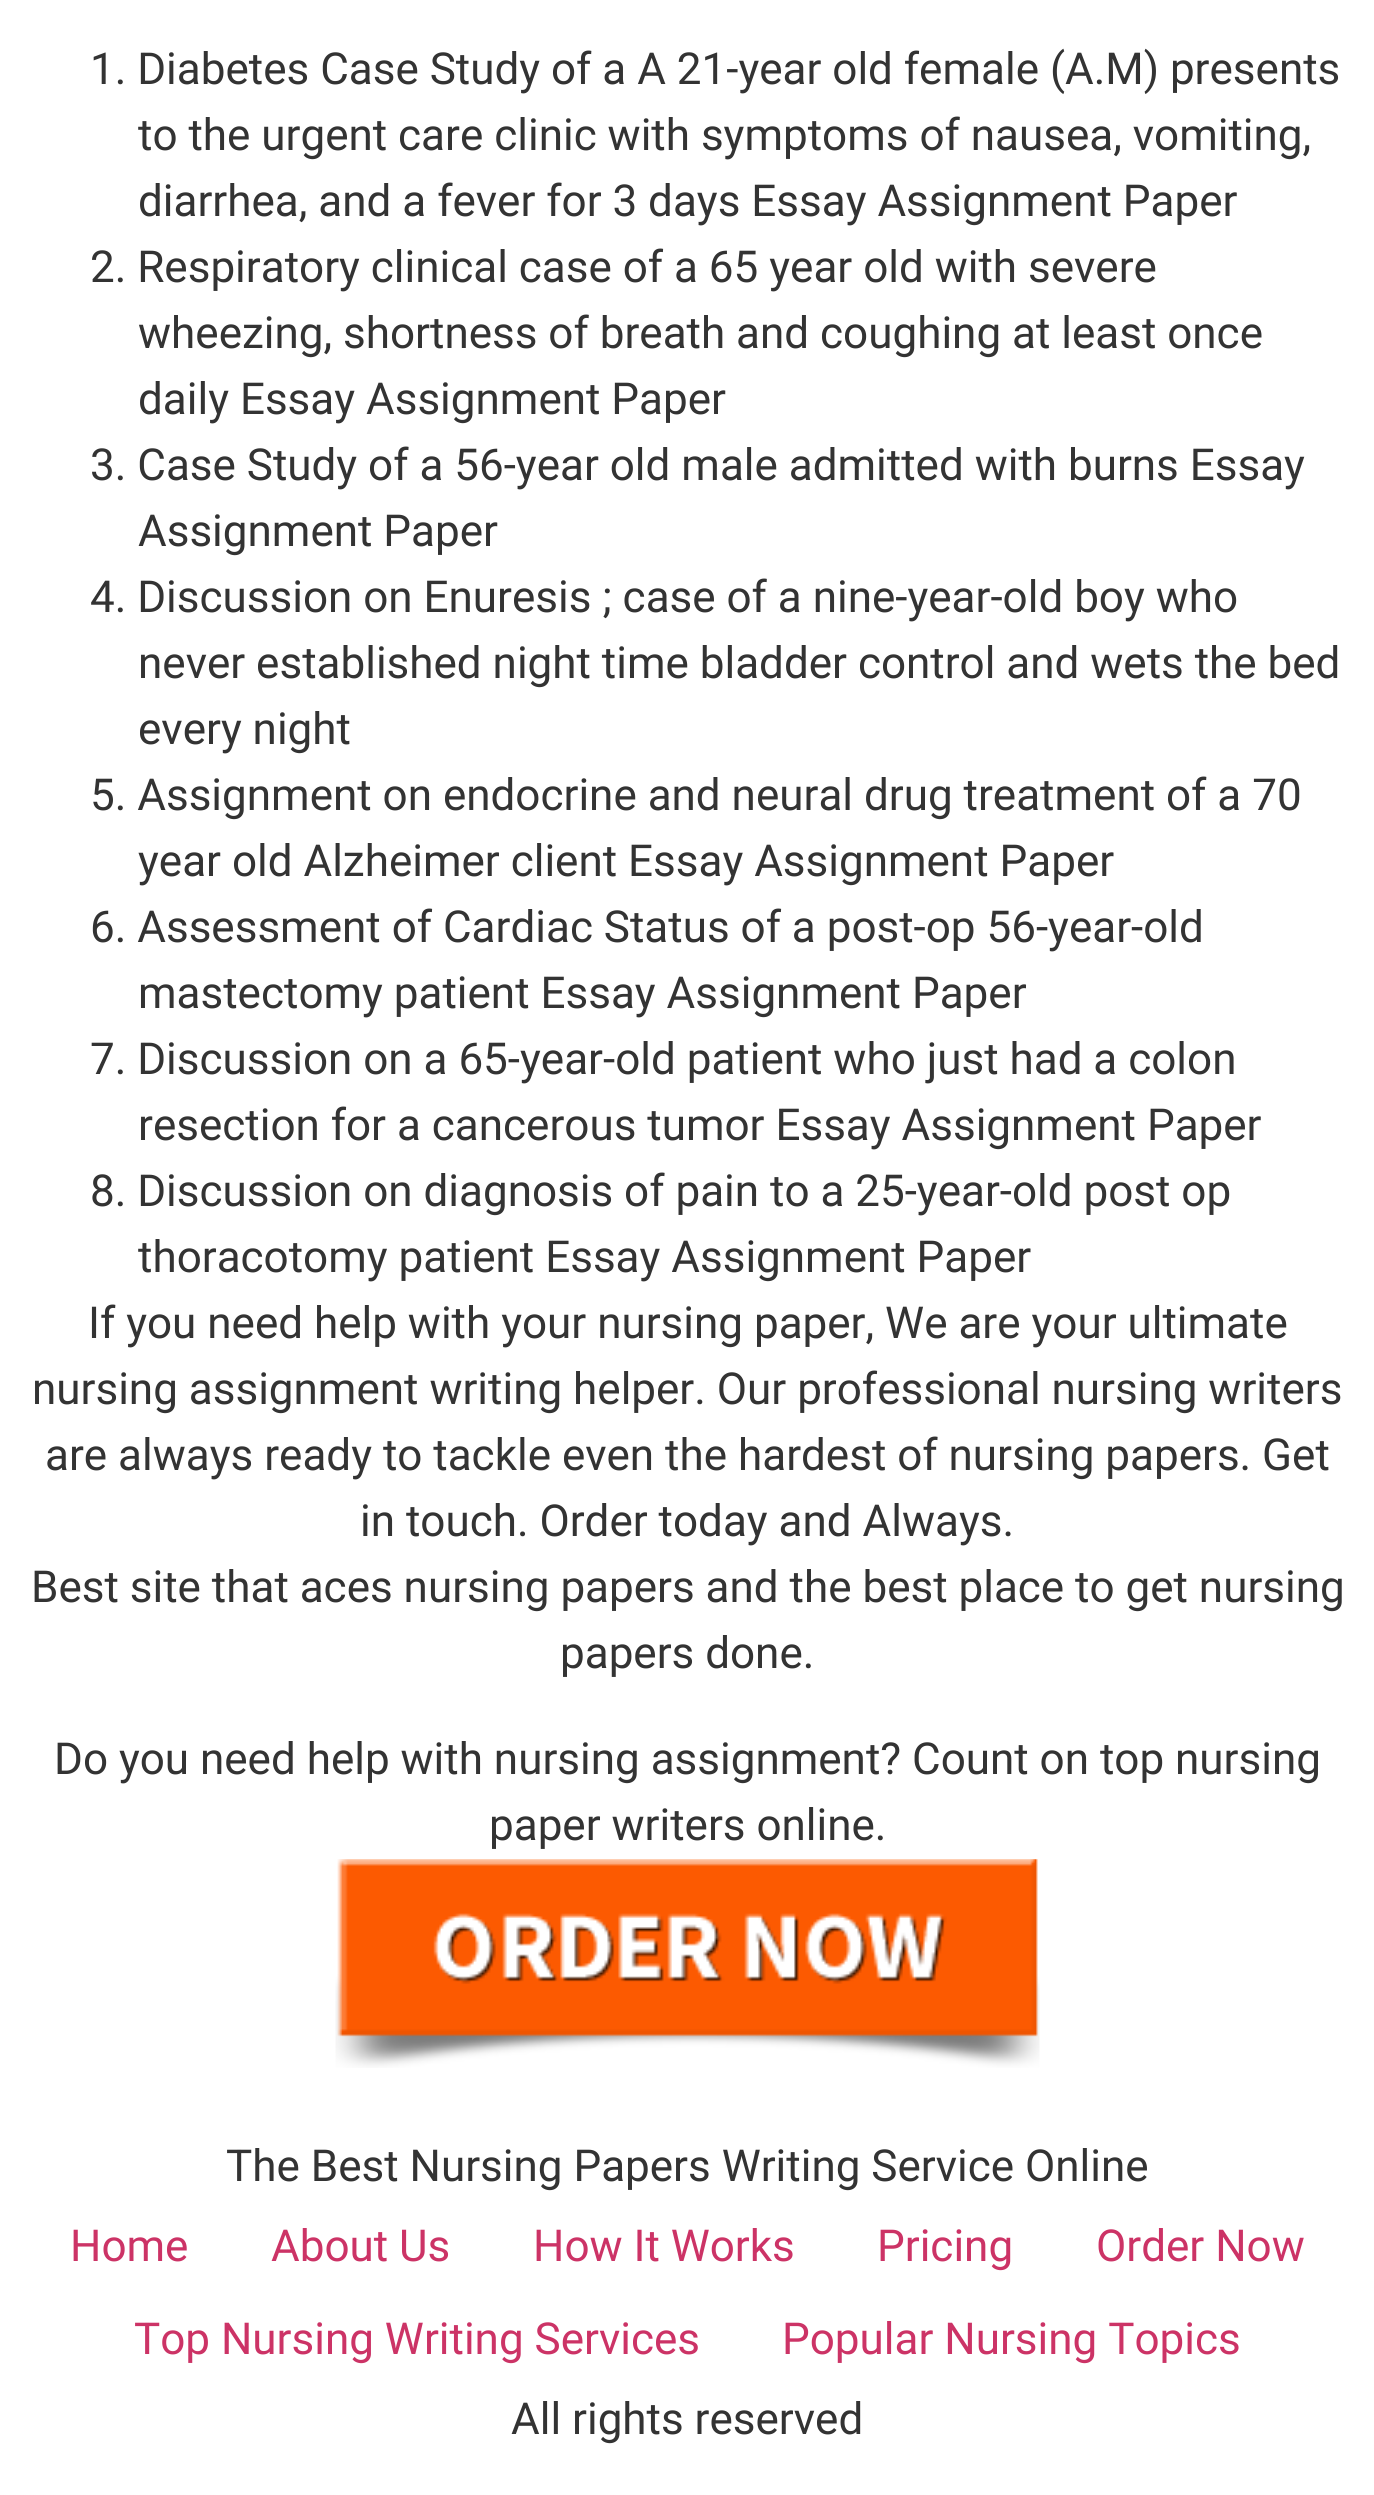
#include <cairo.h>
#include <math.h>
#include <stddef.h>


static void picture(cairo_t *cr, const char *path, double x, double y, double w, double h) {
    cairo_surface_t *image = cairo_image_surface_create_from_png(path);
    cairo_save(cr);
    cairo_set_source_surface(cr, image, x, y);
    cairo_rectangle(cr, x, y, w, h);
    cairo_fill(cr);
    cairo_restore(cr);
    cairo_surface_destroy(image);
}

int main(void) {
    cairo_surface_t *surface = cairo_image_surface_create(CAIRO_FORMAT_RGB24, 1374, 2495);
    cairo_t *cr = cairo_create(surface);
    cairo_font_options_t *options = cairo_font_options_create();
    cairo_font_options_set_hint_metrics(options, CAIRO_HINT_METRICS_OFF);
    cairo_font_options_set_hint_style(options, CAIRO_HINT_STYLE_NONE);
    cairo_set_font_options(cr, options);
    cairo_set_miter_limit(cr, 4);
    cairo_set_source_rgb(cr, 1, 1, 1);
    cairo_paint(cr);
    cairo_select_font_face(cr, "Roboto", CAIRO_FONT_SLANT_NORMAL, CAIRO_FONT_WEIGHT_NORMAL);
    cairo_set_font_size(cr, 44);
    cairo_set_source_rgb(cr, 0.2, 0.2, 0.2);
    cairo_move_to(cr, 90, 84);
    cairo_show_text(cr, "1. Diabetes Case Study of a A 21-year old female (A.M) presents");
    cairo_move_to(cr, 138, 150);
    cairo_show_text(cr, "to the urgent care clinic with symptoms of nausea, vomiting,");
    cairo_move_to(cr, 138, 216);
    cairo_show_text(cr, "diarrhea, and a fever for 3 days Essay Assignment Paper");
    cairo_move_to(cr, 90, 282);
    cairo_show_text(cr, "2. Respiratory clinical case of a 65 year old with severe");
    cairo_move_to(cr, 138, 348);
    cairo_show_text(cr, "wheezing, shortness of breath and coughing at least once");
    cairo_move_to(cr, 138, 414);
    cairo_show_text(cr, "daily Essay Assignment Paper");
    cairo_move_to(cr, 90, 480);
    cairo_show_text(cr, "3. Case Study of a 56-year old male admitted with burns Essay");
    cairo_move_to(cr, 138, 546);
    cairo_show_text(cr, "Assignment Paper");
    cairo_move_to(cr, 90, 612);
    cairo_show_text(cr, "4. Discussion on Enuresis ; case of a nine-year-old boy who");
    cairo_move_to(cr, 138, 678);
    cairo_show_text(cr, "never established night time bladder control and wets the bed");
    cairo_move_to(cr, 138, 744);
    cairo_show_text(cr, "every night");
    cairo_move_to(cr, 90, 810);
    cairo_show_text(cr, "5. Assignment on endocrine and neural drug treatment of a 70");
    cairo_move_to(cr, 138, 876);
    cairo_show_text(cr, "year old Alzheimer client Essay Assignment Paper");
    cairo_move_to(cr, 90, 942);
    cairo_show_text(cr, "6. Assessment of Cardiac Status of a post-op 56-year-old");
    cairo_move_to(cr, 138, 1008);
    cairo_show_text(cr, "mastectomy patient Essay Assignment Paper");
    cairo_move_to(cr, 90, 1074);
    cairo_show_text(cr, "7. Discussion on a 65-year-old patient who just had a colon");
    cairo_move_to(cr, 138, 1140);
    cairo_show_text(cr, "resection for a cancerous tumor Essay Assignment Paper");
    cairo_move_to(cr, 90, 1206);
    cairo_show_text(cr, "8. Discussion on diagnosis of pain to a 25-year-old post op");
    cairo_move_to(cr, 138, 1272);
    cairo_show_text(cr, "thoracotomy patient Essay Assignment Paper");
    cairo_move_to(cr, 88, 1338);
    cairo_show_text(cr, "If you need help with your nursing paper, We are your ultimate");
    cairo_move_to(cr, 32, 1404);
    cairo_show_text(cr, "nursing assignment writing helper. Our professional nursing writers");
    cairo_move_to(cr, 45, 1470);
    cairo_show_text(cr, "are always ready to tackle even the hardest of nursing papers. Get");
    cairo_move_to(cr, 360, 1536);
    cairo_show_text(cr, "in touch. Order today and Always.");
    cairo_move_to(cr, 31, 1602);
    cairo_show_text(cr, "Best site that aces nursing papers and the best place to get nursing");
    cairo_move_to(cr, 560, 1668);
    cairo_show_text(cr, "papers done.");
    cairo_move_to(cr, 54, 1774);
    cairo_show_text(cr, "Do you need help with nursing assignment? Count on top nursing");
    cairo_move_to(cr, 489, 1840);
    cairo_show_text(cr, "paper writers online.");
    picture(cr, "img1.png", 335, 1859, 705, 209);
    cairo_move_to(cr, 226, 2181);
    cairo_show_text(cr, "The Best Nursing Papers Writing Service Online");
    cairo_set_source_rgb(cr, 0.8, 0.2, 0.4);
    cairo_move_to(cr, 70, 2261);
    cairo_show_text(cr, "Home");
    cairo_move_to(cr, 271, 2261);
    cairo_show_text(cr, "About Us");
    cairo_move_to(cr, 533, 2261);
    cairo_show_text(cr, "How It Works");
    cairo_move_to(cr, 877, 2261);
    cairo_show_text(cr, "Pricing");
    cairo_move_to(cr, 1096, 2261);
    cairo_show_text(cr, "Order Now");
    cairo_move_to(cr, 134, 2354);
    cairo_show_text(cr, "Top Nursing Writing Services");
    cairo_move_to(cr, 782, 2354);
    cairo_show_text(cr, "Popular Nursing Topics");
    cairo_set_source_rgb(cr, 0.2, 0.2, 0.2);
    cairo_move_to(cr, 511, 2434);
    cairo_show_text(cr, "All rights reserved");
    cairo_surface_write_to_png(surface, "page.png");
    cairo_font_options_destroy(options);
    cairo_destroy(cr);
    cairo_surface_destroy(surface);
    return 0;
}
